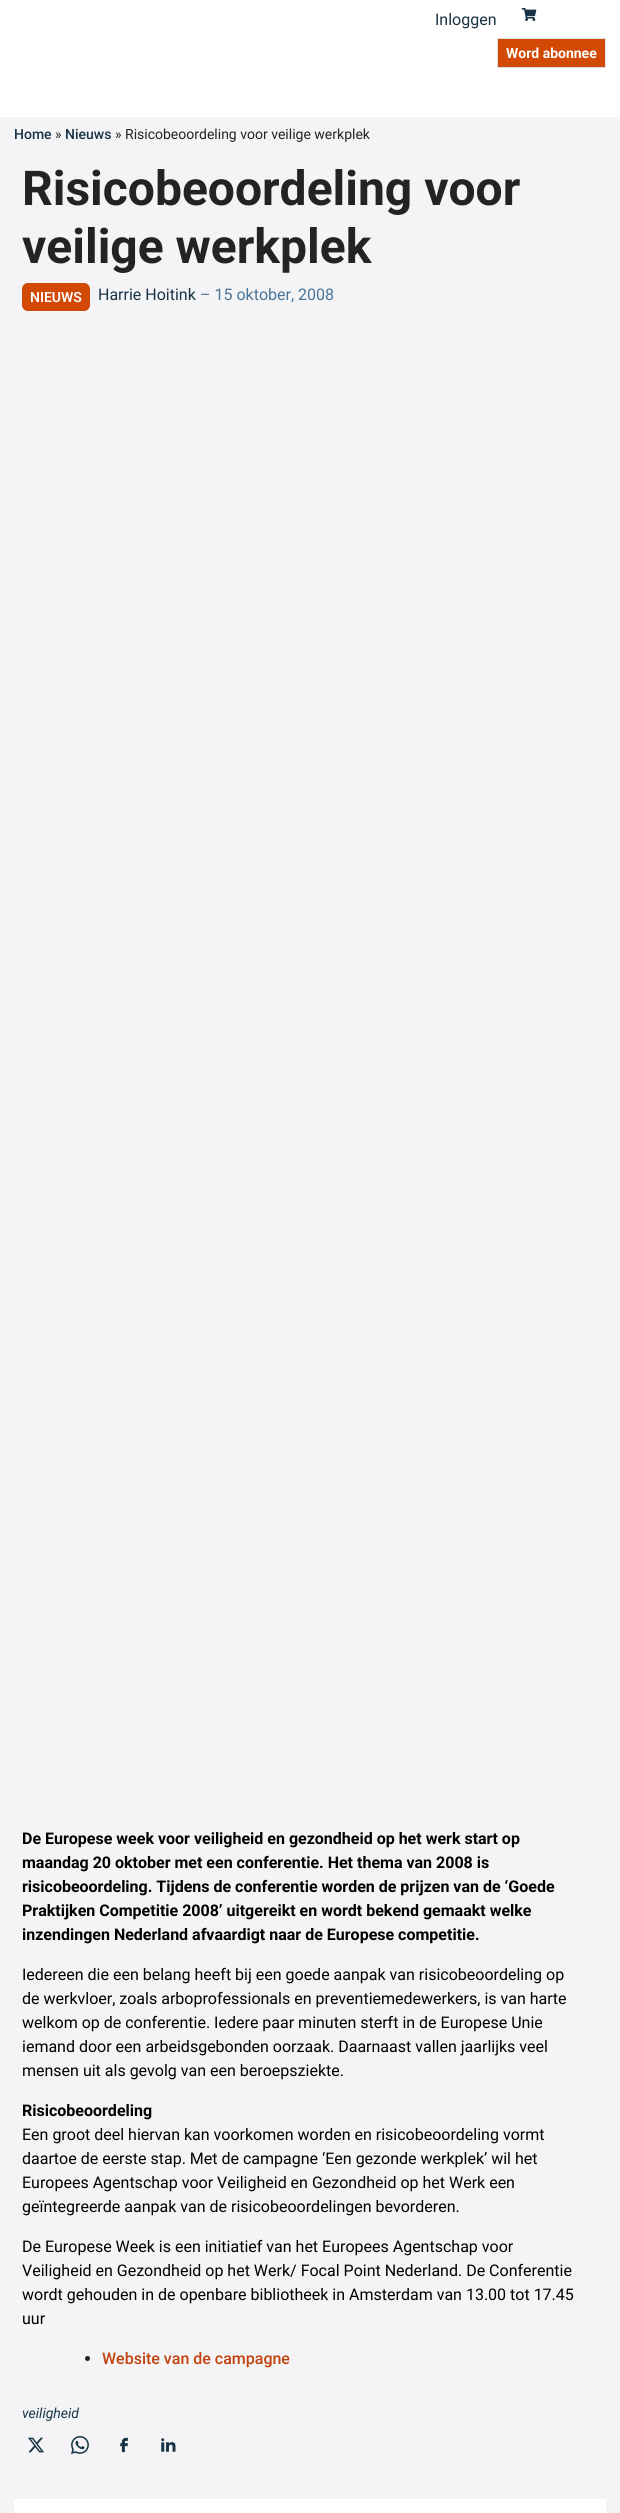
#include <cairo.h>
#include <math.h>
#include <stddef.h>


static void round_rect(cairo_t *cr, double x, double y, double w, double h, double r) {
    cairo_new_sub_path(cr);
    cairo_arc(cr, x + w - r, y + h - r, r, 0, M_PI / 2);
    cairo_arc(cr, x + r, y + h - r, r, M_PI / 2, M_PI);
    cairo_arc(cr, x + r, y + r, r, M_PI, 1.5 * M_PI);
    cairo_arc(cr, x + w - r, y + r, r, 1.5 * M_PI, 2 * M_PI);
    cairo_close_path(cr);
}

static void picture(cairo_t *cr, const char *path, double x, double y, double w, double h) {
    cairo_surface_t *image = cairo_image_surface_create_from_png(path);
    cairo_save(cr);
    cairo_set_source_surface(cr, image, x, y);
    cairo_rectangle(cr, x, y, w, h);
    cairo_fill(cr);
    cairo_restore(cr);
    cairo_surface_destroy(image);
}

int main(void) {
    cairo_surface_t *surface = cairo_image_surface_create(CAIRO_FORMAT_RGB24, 620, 2513);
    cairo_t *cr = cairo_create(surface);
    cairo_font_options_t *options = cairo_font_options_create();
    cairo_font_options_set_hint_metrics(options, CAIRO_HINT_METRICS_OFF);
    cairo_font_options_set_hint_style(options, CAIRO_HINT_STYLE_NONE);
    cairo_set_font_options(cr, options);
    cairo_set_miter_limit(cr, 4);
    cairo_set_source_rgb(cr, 0.957, 0.957, 0.961);
    cairo_paint(cr);
    cairo_set_source_rgb(cr, 1, 1, 1);
    cairo_rectangle(cr, 0, 0, 620, 117);
    cairo_fill(cr);
    cairo_select_font_face(cr, "Roboto", CAIRO_FONT_SLANT_NORMAL, CAIRO_FONT_WEIGHT_NORMAL);
    cairo_set_font_size(cr, 16);
    cairo_set_source_rgb(cr, 0.09, 0.2, 0.271);
    cairo_move_to(cr, 435, 25);
    cairo_show_text(cr, "Inloggen");
    picture(cr, "img1.png", 521, 8, 16, 13);
    cairo_set_source_rgb(cr, 0.82, 0.286, 0.02);
    cairo_rectangle(cr, 497.5, 38.5, 108, 29);
    cairo_fill_preserve(cr);
    cairo_set_source_rgb(cr, 0.871, 0.886, 0.902);
    cairo_set_line_width(cr, 1);
    cairo_stroke(cr);
    cairo_select_font_face(cr, "Roboto", CAIRO_FONT_SLANT_NORMAL, CAIRO_FONT_WEIGHT_BOLD);
    cairo_set_font_size(cr, 14);
    cairo_set_source_rgb(cr, 1, 1, 1);
    cairo_move_to(cr, 506, 58);
    cairo_show_text(cr, "Word abonnee");
    cairo_select_font_face(cr, "Roboto Medium", CAIRO_FONT_SLANT_NORMAL, CAIRO_FONT_WEIGHT_NORMAL);
    cairo_set_source_rgb(cr, 0.09, 0.2, 0.271);
    cairo_move_to(cr, 14, 139);
    cairo_show_text(cr, "Home");
    cairo_select_font_face(cr, "Roboto", CAIRO_FONT_SLANT_NORMAL, CAIRO_FONT_WEIGHT_NORMAL);
    cairo_set_source_rgb(cr, 0.137, 0.137, 0.137);
    cairo_move_to(cr, 55, 139);
    cairo_show_text(cr, "»");
    cairo_select_font_face(cr, "Roboto Medium", CAIRO_FONT_SLANT_NORMAL, CAIRO_FONT_WEIGHT_NORMAL);
    cairo_set_source_rgb(cr, 0.09, 0.2, 0.271);
    cairo_move_to(cr, 65, 139);
    cairo_show_text(cr, "Nieuws");
    cairo_select_font_face(cr, "Roboto", CAIRO_FONT_SLANT_NORMAL, CAIRO_FONT_WEIGHT_NORMAL);
    cairo_set_source_rgb(cr, 0.137, 0.137, 0.137);
    cairo_move_to(cr, 115, 139);
    cairo_show_text(cr, "» Risicobeoordeling voor veilige werkplek");
    cairo_select_font_face(cr, "Roboto", CAIRO_FONT_SLANT_NORMAL, CAIRO_FONT_WEIGHT_BOLD);
    cairo_set_font_size(cr, 48);
    cairo_move_to(cr, 22, 205);
    cairo_show_text(cr, "Risicobeoordeling voor");
    cairo_move_to(cr, 22, 263);
    cairo_show_text(cr, "veilige werkplek");
    cairo_set_source_rgb(cr, 0.82, 0.286, 0.02);
    round_rect(cr, 22, 283, 68, 28, 6);
    cairo_fill(cr);
    cairo_select_font_face(cr, "Roboto SemiBold", CAIRO_FONT_SLANT_NORMAL, CAIRO_FONT_WEIGHT_NORMAL);
    cairo_set_font_size(cr, 14);
    cairo_set_source_rgb(cr, 1, 1, 1);
    cairo_move_to(cr, 30, 302);
    cairo_show_text(cr, "NIEUWS");
    cairo_select_font_face(cr, "Roboto", CAIRO_FONT_SLANT_NORMAL, CAIRO_FONT_WEIGHT_NORMAL);
    cairo_set_font_size(cr, 16);
    cairo_set_source_rgb(cr, 0.09, 0.2, 0.271);
    cairo_move_to(cr, 98, 300);
    cairo_show_text(cr, "Harrie Hoitink");
    cairo_set_source_rgb(cr, 0.29, 0.455, 0.596);
    cairo_move_to(cr, 200, 300);
    cairo_show_text(cr, "– 15 oktober, 2008");
    cairo_select_font_face(cr, "Roboto", CAIRO_FONT_SLANT_NORMAL, CAIRO_FONT_WEIGHT_BOLD);
    cairo_set_source_rgb(cr, 0, 0, 0);
    cairo_move_to(cr, 22, 1844);
    cairo_show_text(cr, "De Europese week voor veiligheid en gezondheid op het werk start op");
    cairo_move_to(cr, 22, 1868);
    cairo_show_text(cr, "maandag 20 oktober met een conferentie. Het thema van 2008 is");
    cairo_move_to(cr, 22, 1892);
    cairo_show_text(cr, "risicobeoordeling. Tijdens de conferentie worden de prijzen van de ‘Goede");
    cairo_move_to(cr, 22, 1916);
    cairo_show_text(cr, "Praktijken Competitie 2008’ uitgereikt en wordt bekend gemaakt welke");
    cairo_move_to(cr, 22, 1940);
    cairo_show_text(cr, "inzendingen Nederland afvaardigt naar de Europese competitie.");
    cairo_select_font_face(cr, "Roboto", CAIRO_FONT_SLANT_NORMAL, CAIRO_FONT_WEIGHT_NORMAL);
    cairo_move_to(cr, 22, 1980);
    cairo_show_text(cr, "Iedereen die een belang heeft bij een goede aanpak van risicobeoordeling op");
    cairo_move_to(cr, 22, 2004);
    cairo_show_text(cr, "de werkvloer, zoals arboprofessionals en preventiemedewerkers, is van harte");
    cairo_move_to(cr, 22, 2028);
    cairo_show_text(cr, "welkom op de conferentie. Iedere paar minuten sterft in de Europese Unie");
    cairo_move_to(cr, 22, 2052);
    cairo_show_text(cr, "iemand door een arbeidsgebonden oorzaak. Daarnaast vallen jaarlijks veel");
    cairo_move_to(cr, 22, 2076);
    cairo_show_text(cr, "mensen uit als gevolg van een beroepsziekte.");
    cairo_select_font_face(cr, "Roboto", CAIRO_FONT_SLANT_NORMAL, CAIRO_FONT_WEIGHT_BOLD);
    cairo_move_to(cr, 22, 2116);
    cairo_show_text(cr, "Risicobeoordeling");
    cairo_select_font_face(cr, "Roboto", CAIRO_FONT_SLANT_NORMAL, CAIRO_FONT_WEIGHT_NORMAL);
    cairo_move_to(cr, 22, 2140);
    cairo_show_text(cr, "Een groot deel hiervan kan voorkomen worden en risicobeoordeling vormt");
    cairo_move_to(cr, 22, 2164);
    cairo_show_text(cr, "daartoe de eerste stap. Met de campagne ‘Een gezonde werkplek’ wil het");
    cairo_move_to(cr, 22, 2188);
    cairo_show_text(cr, "Europees Agentschap voor Veiligheid en Gezondheid op het Werk een");
    cairo_move_to(cr, 22, 2212);
    cairo_show_text(cr, "geïntegreerde aanpak van de risicobeoordelingen bevorderen.");
    cairo_move_to(cr, 22, 2252);
    cairo_show_text(cr, "De Europese Week is een initiatief van het Europees Agentschap voor");
    cairo_move_to(cr, 22, 2276);
    cairo_show_text(cr, "Veiligheid en Gezondheid op het Werk/ Focal Point Nederland. De Conferentie");
    cairo_move_to(cr, 22, 2300);
    cairo_show_text(cr, "wordt gehouden in de openbare bibliotheek in Amsterdam van 13.00 tot 17.45");
    cairo_move_to(cr, 22, 2324);
    cairo_show_text(cr, "uur");
    cairo_set_source_rgb(cr, 0.137, 0.137, 0.137);
    cairo_new_path(cr);
    cairo_arc(cr, 87.5, 2358.5, 2.5, 0, 2 * M_PI);
    cairo_fill(cr);
    cairo_select_font_face(cr, "Roboto Medium", CAIRO_FONT_SLANT_NORMAL, CAIRO_FONT_WEIGHT_NORMAL);
    cairo_set_source_rgb(cr, 0.761, 0.255, 0.047);
    cairo_move_to(cr, 102, 2364);
    cairo_show_text(cr, "Website van de campagne");
    cairo_select_font_face(cr, "Roboto", CAIRO_FONT_SLANT_ITALIC, CAIRO_FONT_WEIGHT_NORMAL);
    cairo_set_font_size(cr, 14);
    cairo_set_source_rgb(cr, 0.09, 0.2, 0.271);
    cairo_move_to(cr, 22, 2418);
    cairo_show_text(cr, "veiligheid");
    picture(cr, "img2.png", 28, 2437, 16, 16);
    picture(cr, "img3.png", 71, 2436, 18, 18);
    picture(cr, "img4.png", 120, 2437, 8, 16);
    picture(cr, "img5.png", 161, 2438, 15, 14);
    cairo_set_source_rgb(cr, 1, 1, 1);
    cairo_rectangle(cr, 14, 2499, 592, 14);
    cairo_fill(cr);
    cairo_surface_write_to_png(surface, "page.png");
    cairo_font_options_destroy(options);
    cairo_destroy(cr);
    cairo_surface_destroy(surface);
    return 0;
}
